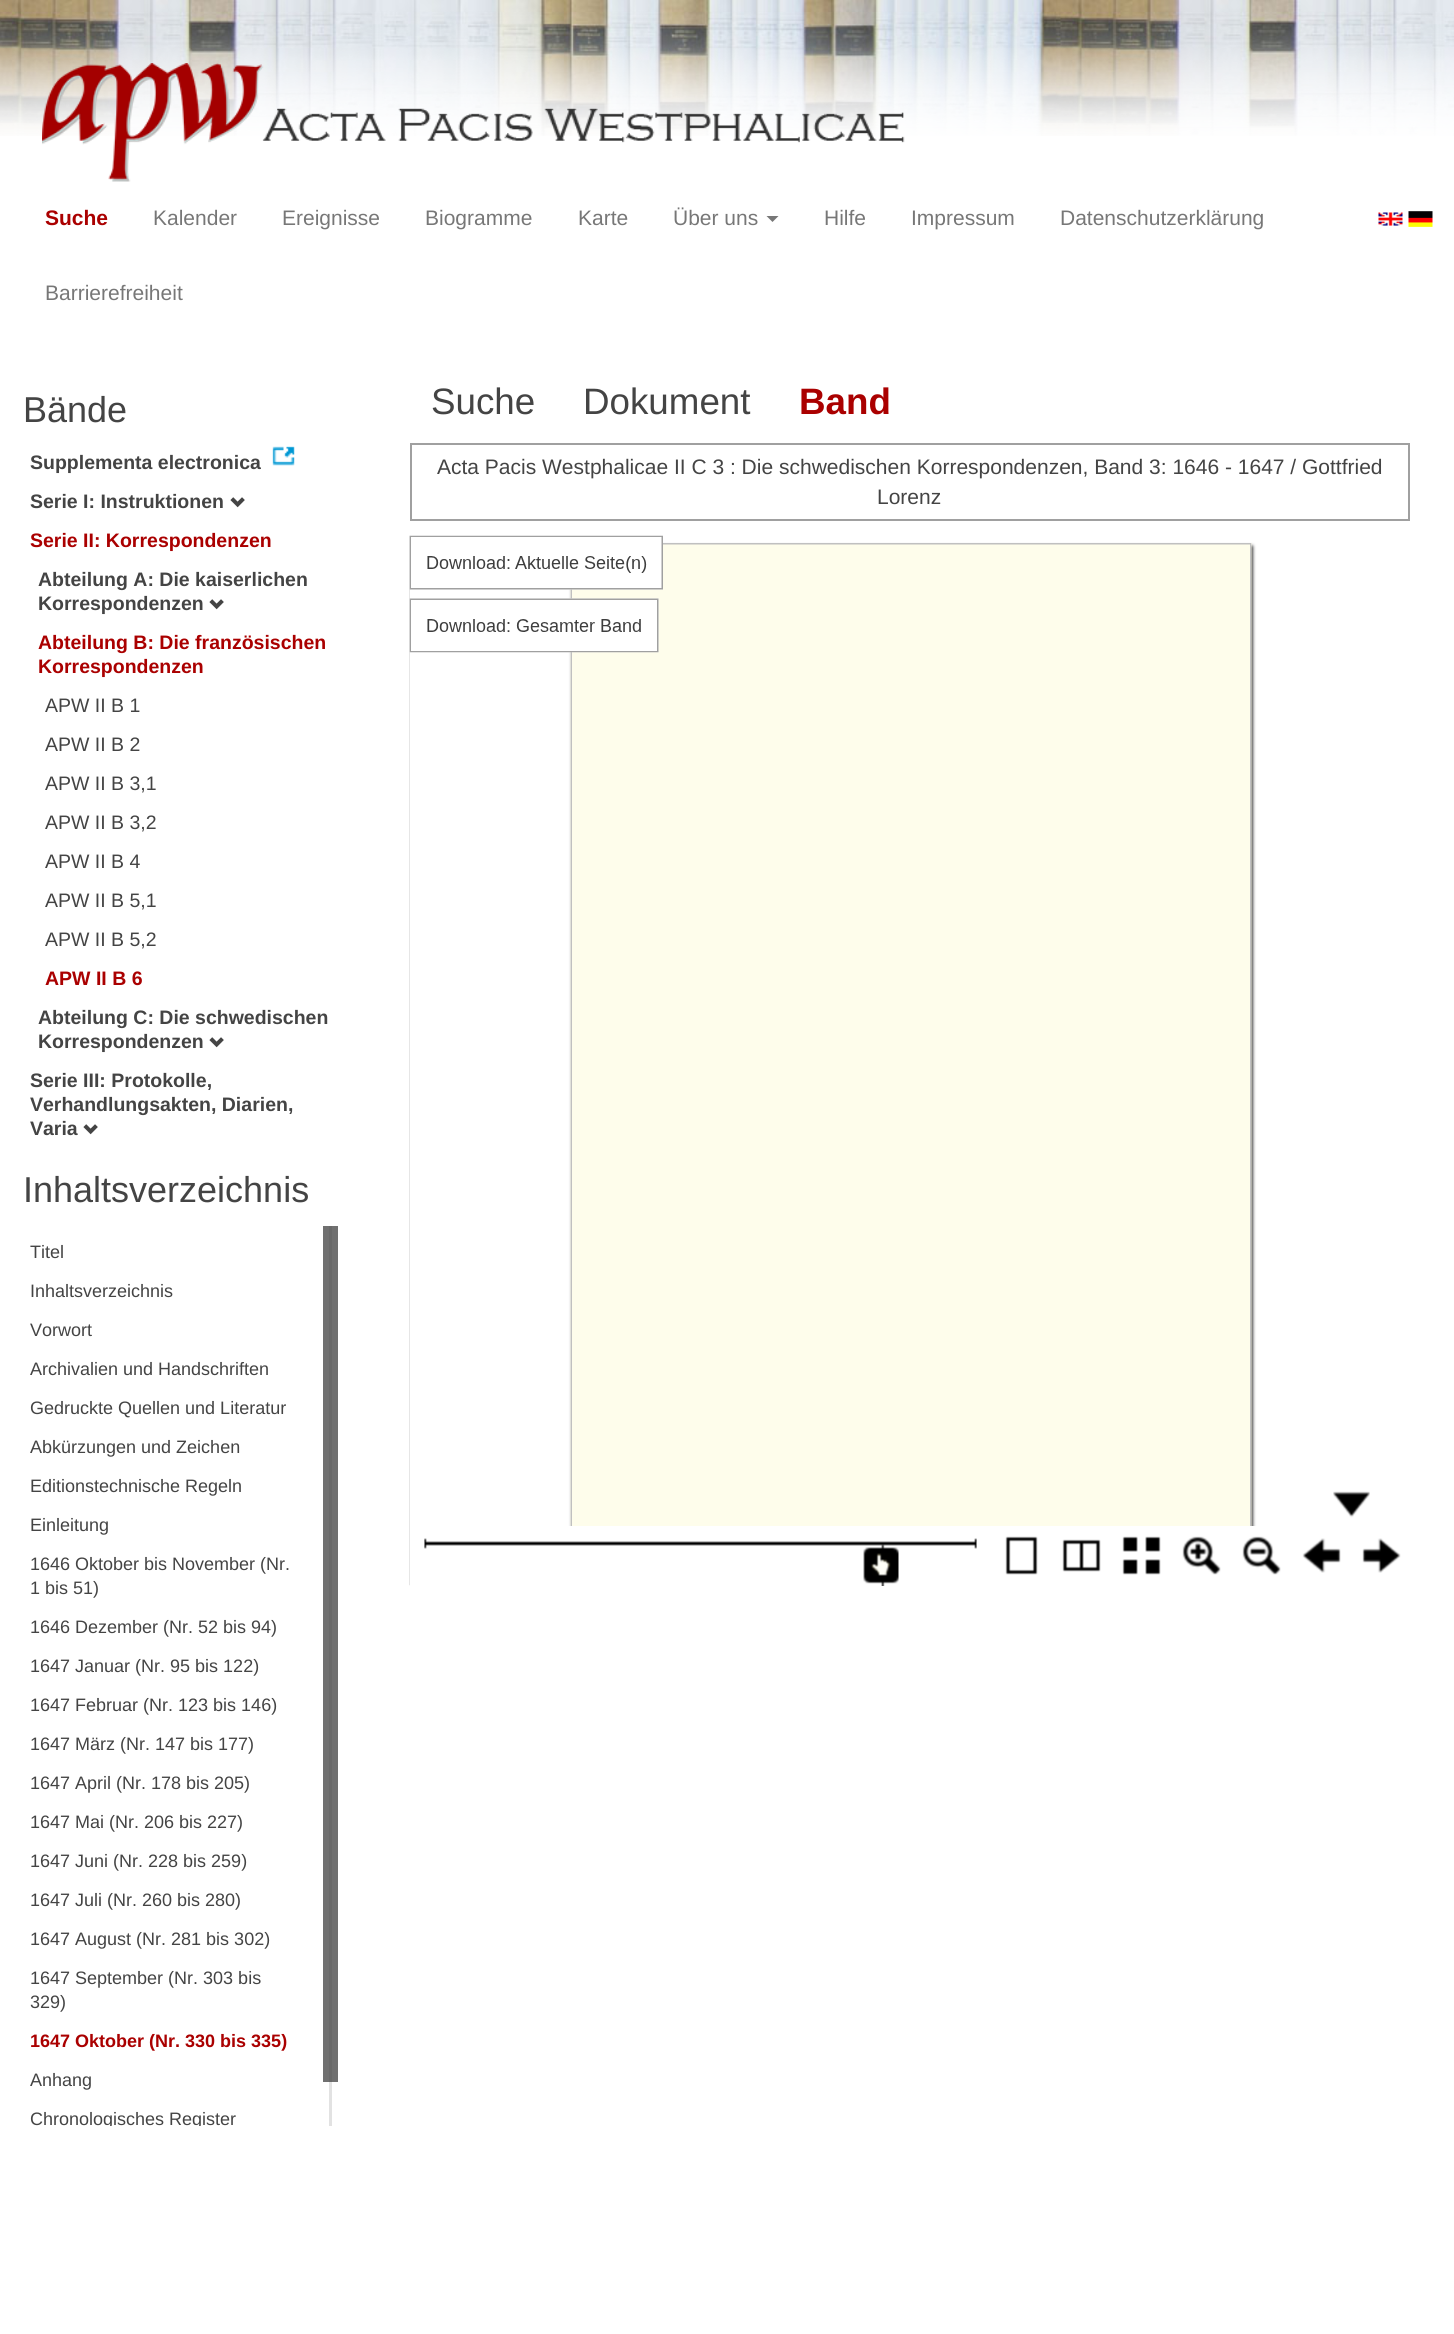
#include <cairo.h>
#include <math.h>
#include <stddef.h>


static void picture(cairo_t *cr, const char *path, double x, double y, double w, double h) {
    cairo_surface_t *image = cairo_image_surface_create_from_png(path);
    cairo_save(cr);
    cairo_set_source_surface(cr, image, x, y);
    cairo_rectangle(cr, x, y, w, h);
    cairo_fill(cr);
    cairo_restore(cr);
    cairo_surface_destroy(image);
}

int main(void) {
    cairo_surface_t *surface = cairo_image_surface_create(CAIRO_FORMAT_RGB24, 1454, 2334);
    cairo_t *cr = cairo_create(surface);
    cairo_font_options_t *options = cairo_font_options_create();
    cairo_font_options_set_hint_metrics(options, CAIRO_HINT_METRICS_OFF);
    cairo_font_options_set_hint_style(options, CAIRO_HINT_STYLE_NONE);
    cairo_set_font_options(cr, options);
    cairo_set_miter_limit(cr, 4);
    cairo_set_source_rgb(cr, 1, 1, 1);
    cairo_paint(cr);
    cairo_set_source_rgb(cr, 0.439, 0.439, 0.439);
    cairo_rectangle(cr, 323, 1226, 15, 856);
    cairo_fill(cr);
    picture(cr, "img1.png", 0, 0, 1454, 136);
    picture(cr, "img2.png", 42, 63, 863, 119);
    cairo_select_font_face(cr, "Liberation Sans", CAIRO_FONT_SLANT_NORMAL, CAIRO_FONT_WEIGHT_BOLD);
    cairo_set_font_size(cr, 21);
    cairo_set_source_rgb(cr, 0.667, 0, 0);
    cairo_move_to(cr, 45, 225);
    cairo_show_text(cr, "Suche");
    cairo_select_font_face(cr, "Liberation Sans", CAIRO_FONT_SLANT_NORMAL, CAIRO_FONT_WEIGHT_NORMAL);
    cairo_set_source_rgb(cr, 0.467, 0.467, 0.467);
    cairo_move_to(cr, 153, 225);
    cairo_show_text(cr, "Kalender");
    cairo_move_to(cr, 282, 225);
    cairo_show_text(cr, "Ereignisse");
    cairo_move_to(cr, 425, 225);
    cairo_show_text(cr, "Biogramme");
    cairo_move_to(cr, 578, 225);
    cairo_show_text(cr, "Karte");
    cairo_move_to(cr, 673, 225);
    cairo_show_text(cr, "Über uns");
    cairo_new_path(cr);
    cairo_move_to(cr, 766.5, 216);
    cairo_line_to(cr, 778.5, 216);
    cairo_line_to(cr, 772.5, 222);
    cairo_close_path(cr);
    cairo_fill(cr);
    cairo_move_to(cr, 824, 225);
    cairo_show_text(cr, "Hilfe");
    cairo_move_to(cr, 911, 225);
    cairo_show_text(cr, "Impressum");
    cairo_move_to(cr, 1060, 225);
    cairo_show_text(cr, "Datenschutzerklärung");
    cairo_move_to(cr, 45, 300);
    cairo_show_text(cr, "Barrierefreiheit");
    picture(cr, "img3.png", 1378, 212, 25, 14);
    picture(cr, "img4.png", 1408, 211, 25, 16);
    cairo_set_font_size(cr, 36);
    cairo_set_source_rgb(cr, 0.267, 0.267, 0.267);
    cairo_move_to(cr, 23, 422);
    cairo_show_text(cr, "Bände");
    cairo_select_font_face(cr, "Liberation Sans", CAIRO_FONT_SLANT_NORMAL, CAIRO_FONT_WEIGHT_BOLD);
    cairo_set_font_size(cr, 19.5);
    cairo_move_to(cr, 30, 469);
    cairo_show_text(cr, "Supplementa electronica");
    picture(cr, "img5.png", 272, 446, 23, 20);
    cairo_move_to(cr, 30, 508);
    cairo_show_text(cr, "Serie I: Instruktionen");
    picture(cr, "img6.png", 230, 497, 15, 11);
    cairo_set_source_rgb(cr, 0.667, 0, 0);
    cairo_move_to(cr, 30, 547);
    cairo_show_text(cr, "Serie II: Korrespondenzen");
    cairo_set_source_rgb(cr, 0.267, 0.267, 0.267);
    cairo_move_to(cr, 38, 586);
    cairo_show_text(cr, "Abteilung A: Die kaiserlichen");
    cairo_move_to(cr, 38, 610);
    cairo_show_text(cr, "Korrespondenzen");
    picture(cr, "img6.png", 209, 599, 15, 11);
    cairo_set_source_rgb(cr, 0.667, 0, 0);
    cairo_move_to(cr, 38, 649);
    cairo_show_text(cr, "Abteilung B: Die französischen");
    cairo_move_to(cr, 38, 673);
    cairo_show_text(cr, "Korrespondenzen");
    cairo_select_font_face(cr, "Liberation Sans", CAIRO_FONT_SLANT_NORMAL, CAIRO_FONT_WEIGHT_NORMAL);
    cairo_set_source_rgb(cr, 0.267, 0.267, 0.267);
    cairo_move_to(cr, 45, 712);
    cairo_show_text(cr, "APW II B 1");
    cairo_move_to(cr, 45, 751);
    cairo_show_text(cr, "APW II B 2");
    cairo_move_to(cr, 45, 790);
    cairo_show_text(cr, "APW II B 3,1");
    cairo_move_to(cr, 45, 829);
    cairo_show_text(cr, "APW II B 3,2");
    cairo_move_to(cr, 45, 868);
    cairo_show_text(cr, "APW II B 4");
    cairo_move_to(cr, 45, 907);
    cairo_show_text(cr, "APW II B 5,1");
    cairo_move_to(cr, 45, 946);
    cairo_show_text(cr, "APW II B 5,2");
    cairo_select_font_face(cr, "Liberation Sans", CAIRO_FONT_SLANT_NORMAL, CAIRO_FONT_WEIGHT_BOLD);
    cairo_set_source_rgb(cr, 0.667, 0, 0);
    cairo_move_to(cr, 45, 985);
    cairo_show_text(cr, "APW II B 6");
    cairo_set_source_rgb(cr, 0.267, 0.267, 0.267);
    cairo_move_to(cr, 38, 1024);
    cairo_show_text(cr, "Abteilung C: Die schwedischen");
    cairo_move_to(cr, 38, 1048);
    cairo_show_text(cr, "Korrespondenzen");
    picture(cr, "img6.png", 209, 1037, 15, 11);
    cairo_move_to(cr, 30, 1087);
    cairo_show_text(cr, "Serie III: Protokolle,");
    cairo_move_to(cr, 30, 1111);
    cairo_show_text(cr, "Verhandlungsakten, Diarien,");
    cairo_move_to(cr, 30, 1135);
    cairo_show_text(cr, "Varia");
    picture(cr, "img6.png", 83, 1124, 15, 11);
    cairo_select_font_face(cr, "Liberation Sans", CAIRO_FONT_SLANT_NORMAL, CAIRO_FONT_WEIGHT_NORMAL);
    cairo_set_font_size(cr, 36);
    cairo_move_to(cr, 23, 1202);
    cairo_show_text(cr, "Inhaltsverzeichnis");
    cairo_set_font_size(cr, 18);
    cairo_move_to(cr, 30, 1258);
    cairo_show_text(cr, "Titel");
    cairo_move_to(cr, 30, 1297);
    cairo_show_text(cr, "Inhaltsverzeichnis");
    cairo_move_to(cr, 30, 1336);
    cairo_show_text(cr, "Vorwort");
    cairo_move_to(cr, 30, 1375);
    cairo_show_text(cr, "Archivalien und Handschriften");
    cairo_move_to(cr, 30, 1414);
    cairo_show_text(cr, "Gedruckte Quellen und Literatur");
    cairo_move_to(cr, 30, 1453);
    cairo_show_text(cr, "Abkürzungen und Zeichen");
    cairo_move_to(cr, 30, 1492);
    cairo_show_text(cr, "Editionstechnische Regeln");
    cairo_move_to(cr, 30, 1531);
    cairo_show_text(cr, "Einleitung");
    cairo_move_to(cr, 30, 1570);
    cairo_show_text(cr, "1646 Oktober bis November (Nr.");
    cairo_move_to(cr, 30, 1594);
    cairo_show_text(cr, "1 bis 51)");
    cairo_move_to(cr, 30, 1633);
    cairo_show_text(cr, "1646 Dezember (Nr. 52 bis 94)");
    cairo_move_to(cr, 30, 1672);
    cairo_show_text(cr, "1647 Januar (Nr. 95 bis 122)");
    cairo_move_to(cr, 30, 1711);
    cairo_show_text(cr, "1647 Februar (Nr. 123 bis 146)");
    cairo_move_to(cr, 30, 1750);
    cairo_show_text(cr, "1647 März (Nr. 147 bis 177)");
    cairo_move_to(cr, 30, 1789);
    cairo_show_text(cr, "1647 April (Nr. 178 bis 205)");
    cairo_move_to(cr, 30, 1828);
    cairo_show_text(cr, "1647 Mai (Nr. 206 bis 227)");
    cairo_move_to(cr, 30, 1867);
    cairo_show_text(cr, "1647 Juni (Nr. 228 bis 259)");
    cairo_move_to(cr, 30, 1906);
    cairo_show_text(cr, "1647 Juli (Nr. 260 bis 280)");
    cairo_move_to(cr, 30, 1945);
    cairo_show_text(cr, "1647 August (Nr. 281 bis 302)");
    cairo_move_to(cr, 30, 1984);
    cairo_show_text(cr, "1647 September (Nr. 303 bis");
    cairo_move_to(cr, 30, 2008);
    cairo_show_text(cr, "329)");
    cairo_select_font_face(cr, "Liberation Sans", CAIRO_FONT_SLANT_NORMAL, CAIRO_FONT_WEIGHT_BOLD);
    cairo_set_source_rgb(cr, 0.667, 0, 0);
    cairo_move_to(cr, 30, 2047);
    cairo_show_text(cr, "1647 Oktober (Nr. 330 bis 335)");
    cairo_select_font_face(cr, "Liberation Sans", CAIRO_FONT_SLANT_NORMAL, CAIRO_FONT_WEIGHT_NORMAL);
    cairo_set_source_rgb(cr, 0.267, 0.267, 0.267);
    cairo_move_to(cr, 30, 2086);
    cairo_show_text(cr, "Anhang");
    cairo_save(cr);
    cairo_rectangle(cr, 30, 1226, 267, 900);
    cairo_clip(cr);
    cairo_move_to(cr, 30, 2125);
    cairo_show_text(cr, "Chronologisches Register");
    cairo_restore(cr);
    cairo_set_source_rgb(cr, 0.886, 0.886, 0.886);
    cairo_rectangle(cr, 329, 2082, 3, 44);
    cairo_fill(cr);
    cairo_set_source_rgb(cr, 0.412, 0.412, 0.412);
    cairo_rectangle(cr, 329, 1226, 3, 856);
    cairo_fill(cr);
    cairo_set_font_size(cr, 36.75);
    cairo_set_source_rgb(cr, 0.267, 0.267, 0.267);
    cairo_move_to(cr, 431, 414);
    cairo_show_text(cr, "Suche");
    cairo_move_to(cr, 583, 414);
    cairo_show_text(cr, "Dokument");
    cairo_select_font_face(cr, "Liberation Sans", CAIRO_FONT_SLANT_NORMAL, CAIRO_FONT_WEIGHT_BOLD);
    cairo_set_source_rgb(cr, 0.667, 0, 0);
    cairo_move_to(cr, 799, 414);
    cairo_show_text(cr, "Band");
    cairo_rectangle(cr, 411, 444, 998, 76);
    cairo_set_source_rgb(cr, 0.627, 0.627, 0.627);
    cairo_stroke(cr);
    cairo_select_font_face(cr, "Liberation Sans", CAIRO_FONT_SLANT_NORMAL, CAIRO_FONT_WEIGHT_NORMAL);
    cairo_set_font_size(cr, 21);
    cairo_set_source_rgb(cr, 0.267, 0.267, 0.267);
    cairo_move_to(cr, 437, 474);
    cairo_show_text(cr, "Acta Pacis Westphalicae II C 3 : Die schwedischen Korrespondenzen, Band 3: 1646 - 1647 / Gottfried");
    cairo_move_to(cr, 877, 504);
    cairo_show_text(cr, "Lorenz");
    picture(cr, "img7.png", 409, 535, 992, 1051);
    cairo_surface_write_to_png(surface, "page.png");
    cairo_font_options_destroy(options);
    cairo_destroy(cr);
    cairo_surface_destroy(surface);
    return 0;
}
